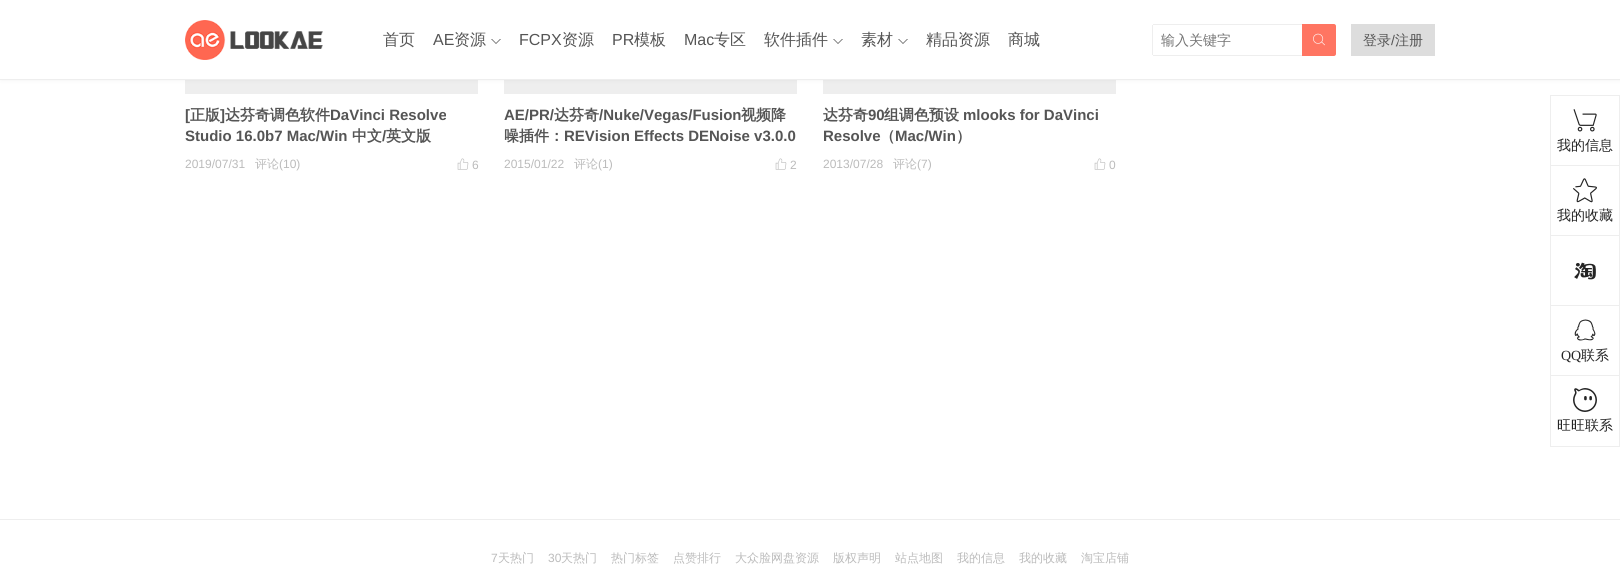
#include <cairo.h>
#include <math.h>
#include <stddef.h>


static void round_rect(cairo_t *cr, double x, double y, double w, double h, double r) {
    cairo_new_sub_path(cr);
    cairo_arc(cr, x + w - r, y + h - r, r, 0, M_PI / 2);
    cairo_arc(cr, x + r, y + h - r, r, M_PI / 2, M_PI);
    cairo_arc(cr, x + r, y + r, r, M_PI, 1.5 * M_PI);
    cairo_arc(cr, x + w - r, y + r, r, 1.5 * M_PI, 2 * M_PI);
    cairo_close_path(cr);
}

static void shadow(cairo_t *cr, double x, double y, double w, double h, double r, double blur, double alpha) {
    cairo_push_group_with_content(cr, CAIRO_CONTENT_ALPHA);
    cairo_set_operator(cr, CAIRO_OPERATOR_SOURCE);
    for (int i = 15; i >= -15 && fmin(w, h) + blur * i / 3 > 0; i -= 2) {
        double e = blur * i / 6;
        cairo_set_source_rgba(cr, 0, 0, 0, alpha * erfc((i - 1) / 8.5) / 2);
        round_rect(cr, x - e, y - e, w + 2 * e, h + 2 * e, fmax(0, fmin(r + e + blur * .6, fmin(w, h) / 2 + e)));
        cairo_fill(cr);
    }
    cairo_pattern_t *soft = cairo_pop_group(cr);
    cairo_mask(cr, soft);
    cairo_pattern_destroy(soft);
}

static void picture(cairo_t *cr, const char *path, double x, double y, double w, double h) {
    cairo_surface_t *image = cairo_image_surface_create_from_png(path);
    cairo_save(cr);
    cairo_set_source_surface(cr, image, x, y);
    cairo_rectangle(cr, x, y, w, h);
    cairo_fill(cr);
    cairo_restore(cr);
    cairo_surface_destroy(image);
}

int main(void) {
    cairo_surface_t *surface = cairo_image_surface_create(CAIRO_FORMAT_RGB24, 1620, 575);
    cairo_t *cr = cairo_create(surface);
    cairo_font_options_t *options = cairo_font_options_create();
    cairo_font_options_set_hint_metrics(options, CAIRO_HINT_METRICS_OFF);
    cairo_font_options_set_hint_style(options, CAIRO_HINT_STYLE_NONE);
    cairo_set_font_options(cr, options);
    cairo_set_miter_limit(cr, 4);
    cairo_set_source_rgb(cr, 1, 1, 1);
    cairo_paint(cr);
    picture(cr, "img3.png", 185, 80, 293, 14);
    picture(cr, "img3.png", 504, 80, 293, 14);
    picture(cr, "img3.png", 823, 80, 293, 14);
    cairo_set_source_rgb(cr, 0, 0, 0);
    shadow(cr, 1, 0, 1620, 80, 0, 2.5, 0.06);
    cairo_set_source_rgb(cr, 1, 1, 1);
    cairo_rectangle(cr, 0, 0, 1620, 79);
    cairo_fill(cr);
    cairo_set_source_rgb(cr, 0.933, 0.933, 0.933);
    cairo_rectangle(cr, 0, 79, 1620, 1);
    cairo_fill(cr);
    picture(cr, "img1.png", 185, 20, 138, 40);
    cairo_select_font_face(cr, "WenQuanYi Zen Hei Medium", CAIRO_FONT_SLANT_NORMAL, CAIRO_FONT_WEIGHT_NORMAL);
    cairo_set_font_size(cr, 16);
    cairo_set_source_rgb(cr, 0.333, 0.333, 0.333);
    cairo_move_to(cr, 383, 45);
    cairo_show_text(cr, "首页");
    cairo_select_font_face(cr, "Liberation Sans", CAIRO_FONT_SLANT_NORMAL, CAIRO_FONT_WEIGHT_NORMAL);
    cairo_move_to(cr, 433, 45);
    cairo_show_text(cr, "AE");
    cairo_select_font_face(cr, "WenQuanYi Zen Hei Medium", CAIRO_FONT_SLANT_NORMAL, CAIRO_FONT_WEIGHT_NORMAL);
    cairo_move_to(cr, 454, 45);
    cairo_show_text(cr, "资源");
    cairo_new_path(cr);
    cairo_move_to(cr, 491, 39);
    cairo_line_to(cr, 501, 39);
    cairo_line_to(cr, 496, 44);
    cairo_close_path(cr);
    cairo_fill(cr);
    cairo_set_source_rgb(cr, 1, 1, 1);
    cairo_new_path(cr);
    cairo_move_to(cr, 491, 38);
    cairo_line_to(cr, 501, 38);
    cairo_line_to(cr, 496, 43);
    cairo_close_path(cr);
    cairo_fill(cr);
    cairo_select_font_face(cr, "Liberation Sans", CAIRO_FONT_SLANT_NORMAL, CAIRO_FONT_WEIGHT_NORMAL);
    cairo_set_source_rgb(cr, 0.333, 0.333, 0.333);
    cairo_move_to(cr, 519, 45);
    cairo_show_text(cr, "FCPX");
    cairo_select_font_face(cr, "WenQuanYi Zen Hei Medium", CAIRO_FONT_SLANT_NORMAL, CAIRO_FONT_WEIGHT_NORMAL);
    cairo_move_to(cr, 562, 45);
    cairo_show_text(cr, "资源");
    cairo_select_font_face(cr, "Liberation Sans", CAIRO_FONT_SLANT_NORMAL, CAIRO_FONT_WEIGHT_NORMAL);
    cairo_move_to(cr, 612, 45);
    cairo_show_text(cr, "PR");
    cairo_select_font_face(cr, "WenQuanYi Zen Hei Medium", CAIRO_FONT_SLANT_NORMAL, CAIRO_FONT_WEIGHT_NORMAL);
    cairo_move_to(cr, 634, 45);
    cairo_show_text(cr, "模板");
    cairo_select_font_face(cr, "Liberation Sans", CAIRO_FONT_SLANT_NORMAL, CAIRO_FONT_WEIGHT_NORMAL);
    cairo_move_to(cr, 684, 45);
    cairo_show_text(cr, "Mac");
    cairo_select_font_face(cr, "WenQuanYi Zen Hei Medium", CAIRO_FONT_SLANT_NORMAL, CAIRO_FONT_WEIGHT_NORMAL);
    cairo_move_to(cr, 714, 45);
    cairo_show_text(cr, "专区");
    cairo_move_to(cr, 764, 45);
    cairo_show_text(cr, "软件插件");
    cairo_new_path(cr);
    cairo_move_to(cr, 833, 39);
    cairo_line_to(cr, 843, 39);
    cairo_line_to(cr, 838, 44);
    cairo_close_path(cr);
    cairo_fill(cr);
    cairo_set_source_rgb(cr, 1, 1, 1);
    cairo_new_path(cr);
    cairo_move_to(cr, 833, 38);
    cairo_line_to(cr, 843, 38);
    cairo_line_to(cr, 838, 43);
    cairo_close_path(cr);
    cairo_fill(cr);
    cairo_set_source_rgb(cr, 0.333, 0.333, 0.333);
    cairo_move_to(cr, 861, 45);
    cairo_show_text(cr, "素材");
    cairo_new_path(cr);
    cairo_move_to(cr, 898, 39);
    cairo_line_to(cr, 908, 39);
    cairo_line_to(cr, 903, 44);
    cairo_close_path(cr);
    cairo_fill(cr);
    cairo_set_source_rgb(cr, 1, 1, 1);
    cairo_new_path(cr);
    cairo_move_to(cr, 898, 38);
    cairo_line_to(cr, 908, 38);
    cairo_line_to(cr, 903, 43);
    cairo_close_path(cr);
    cairo_fill(cr);
    cairo_set_source_rgb(cr, 0.333, 0.333, 0.333);
    cairo_move_to(cr, 926, 45);
    cairo_show_text(cr, "精品资源");
    cairo_move_to(cr, 1008, 45);
    cairo_show_text(cr, "商城");
    cairo_set_source_rgb(cr, 0.933, 0.933, 0.933);
    cairo_rectangle(cr, 1153, 24, 149, 1);
    cairo_fill(cr);
    cairo_rectangle(cr, 1153, 55, 149, 1);
    cairo_fill(cr);
    cairo_rectangle(cr, 1152, 25, 1, 30);
    cairo_fill(cr);
    cairo_set_font_size(cr, 14);
    cairo_set_source_rgb(cr, 0.459, 0.459, 0.459);
    cairo_move_to(cr, 1161, 45);
    cairo_show_text(cr, "输入关键字");
    cairo_set_source_rgb(cr, 1, 0.459, 0.384);
    cairo_new_path(cr);
    cairo_move_to(cr, 1302, 24);
    cairo_line_to(cr, 1334, 24);
    cairo_curve_to(cr, 1335, 24, 1336, 25, 1336, 26);
    cairo_line_to(cr, 1336, 54);
    cairo_curve_to(cr, 1336, 55, 1335, 56, 1334, 56);
    cairo_line_to(cr, 1302, 56);
    cairo_close_path(cr);
    cairo_fill(cr);
    picture(cr, "img2.png", 1313, 33, 12, 13);
    cairo_set_source_rgb(cr, 0.867, 0.867, 0.867);
    cairo_rectangle(cr, 1351, 24, 84, 32);
    cairo_fill(cr);
    cairo_set_source_rgb(cr, 0.333, 0.333, 0.333);
    cairo_move_to(cr, 1363, 45);
    cairo_show_text(cr, "登录");
    cairo_select_font_face(cr, "Liberation Sans", CAIRO_FONT_SLANT_NORMAL, CAIRO_FONT_WEIGHT_NORMAL);
    cairo_move_to(cr, 1391, 45);
    cairo_show_text(cr, "/");
    cairo_select_font_face(cr, "WenQuanYi Zen Hei Medium", CAIRO_FONT_SLANT_NORMAL, CAIRO_FONT_WEIGHT_NORMAL);
    cairo_move_to(cr, 1395, 45);
    cairo_show_text(cr, "注册");
    cairo_select_font_face(cr, "Liberation Sans", CAIRO_FONT_SLANT_NORMAL, CAIRO_FONT_WEIGHT_BOLD);
    cairo_set_font_size(cr, 15);
    cairo_move_to(cr, 185, 120);
    cairo_show_text(cr, "[");
    cairo_select_font_face(cr, "WenQuanYi Zen Hei", CAIRO_FONT_SLANT_NORMAL, CAIRO_FONT_WEIGHT_BOLD);
    cairo_move_to(cr, 190, 120);
    cairo_show_text(cr, "正版");
    cairo_select_font_face(cr, "Liberation Sans", CAIRO_FONT_SLANT_NORMAL, CAIRO_FONT_WEIGHT_BOLD);
    cairo_move_to(cr, 220, 120);
    cairo_show_text(cr, "]");
    cairo_select_font_face(cr, "WenQuanYi Zen Hei", CAIRO_FONT_SLANT_NORMAL, CAIRO_FONT_WEIGHT_BOLD);
    cairo_move_to(cr, 225, 120);
    cairo_show_text(cr, "达芬奇调色软件");
    cairo_select_font_face(cr, "Liberation Sans", CAIRO_FONT_SLANT_NORMAL, CAIRO_FONT_WEIGHT_BOLD);
    cairo_move_to(cr, 330, 120);
    cairo_show_text(cr, "DaVinci Resolve");
    cairo_move_to(cr, 185, 141);
    cairo_show_text(cr, "Studio 16.0b7 Mac/Win");
    cairo_select_font_face(cr, "WenQuanYi Zen Hei", CAIRO_FONT_SLANT_NORMAL, CAIRO_FONT_WEIGHT_BOLD);
    cairo_move_to(cr, 352, 141);
    cairo_show_text(cr, "中文");
    cairo_select_font_face(cr, "Liberation Sans", CAIRO_FONT_SLANT_NORMAL, CAIRO_FONT_WEIGHT_BOLD);
    cairo_move_to(cr, 382, 141);
    cairo_show_text(cr, "/");
    cairo_select_font_face(cr, "WenQuanYi Zen Hei", CAIRO_FONT_SLANT_NORMAL, CAIRO_FONT_WEIGHT_BOLD);
    cairo_move_to(cr, 386, 141);
    cairo_show_text(cr, "英文版");
    cairo_select_font_face(cr, "Liberation Sans", CAIRO_FONT_SLANT_NORMAL, CAIRO_FONT_WEIGHT_NORMAL);
    cairo_set_font_size(cr, 12);
    cairo_set_source_rgb(cr, 0.733, 0.733, 0.733);
    cairo_move_to(cr, 185, 168);
    cairo_show_text(cr, "2019/07/31");
    cairo_select_font_face(cr, "WenQuanYi Zen Hei Medium", CAIRO_FONT_SLANT_NORMAL, CAIRO_FONT_WEIGHT_NORMAL);
    cairo_move_to(cr, 255, 168);
    cairo_show_text(cr, "评论");
    cairo_select_font_face(cr, "Liberation Sans", CAIRO_FONT_SLANT_NORMAL, CAIRO_FONT_WEIGHT_NORMAL);
    cairo_move_to(cr, 279, 168);
    cairo_show_text(cr, "(10)");
    picture(cr, "img4.png", 457, 158, 12, 12);
    cairo_move_to(cr, 472, 169);
    cairo_show_text(cr, "6");
    cairo_select_font_face(cr, "Liberation Sans", CAIRO_FONT_SLANT_NORMAL, CAIRO_FONT_WEIGHT_BOLD);
    cairo_set_font_size(cr, 15);
    cairo_set_source_rgb(cr, 0.333, 0.333, 0.333);
    cairo_move_to(cr, 504, 120);
    cairo_show_text(cr, "AE/PR/");
    cairo_select_font_face(cr, "WenQuanYi Zen Hei", CAIRO_FONT_SLANT_NORMAL, CAIRO_FONT_WEIGHT_BOLD);
    cairo_move_to(cr, 554, 120);
    cairo_show_text(cr, "达芬奇");
    cairo_select_font_face(cr, "Liberation Sans", CAIRO_FONT_SLANT_NORMAL, CAIRO_FONT_WEIGHT_BOLD);
    cairo_move_to(cr, 599, 120);
    cairo_show_text(cr, "/Nuke/Vegas/Fusion");
    cairo_select_font_face(cr, "WenQuanYi Zen Hei", CAIRO_FONT_SLANT_NORMAL, CAIRO_FONT_WEIGHT_BOLD);
    cairo_move_to(cr, 741, 120);
    cairo_show_text(cr, "视频降");
    cairo_move_to(cr, 504, 141);
    cairo_show_text(cr, "噪插件：");
    cairo_select_font_face(cr, "Liberation Sans", CAIRO_FONT_SLANT_NORMAL, CAIRO_FONT_WEIGHT_BOLD);
    cairo_move_to(cr, 564, 141);
    cairo_show_text(cr, "REVision Effects DENoise v3.0.0");
    cairo_select_font_face(cr, "Liberation Sans", CAIRO_FONT_SLANT_NORMAL, CAIRO_FONT_WEIGHT_NORMAL);
    cairo_set_font_size(cr, 12);
    cairo_set_source_rgb(cr, 0.733, 0.733, 0.733);
    cairo_move_to(cr, 504, 168);
    cairo_show_text(cr, "2015/01/22");
    cairo_select_font_face(cr, "WenQuanYi Zen Hei Medium", CAIRO_FONT_SLANT_NORMAL, CAIRO_FONT_WEIGHT_NORMAL);
    cairo_move_to(cr, 574, 168);
    cairo_show_text(cr, "评论");
    cairo_select_font_face(cr, "Liberation Sans", CAIRO_FONT_SLANT_NORMAL, CAIRO_FONT_WEIGHT_NORMAL);
    cairo_move_to(cr, 598, 168);
    cairo_show_text(cr, "(1)");
    picture(cr, "img4.png", 775, 158, 12, 12);
    cairo_move_to(cr, 790, 169);
    cairo_show_text(cr, "2");
    cairo_select_font_face(cr, "WenQuanYi Zen Hei", CAIRO_FONT_SLANT_NORMAL, CAIRO_FONT_WEIGHT_BOLD);
    cairo_set_font_size(cr, 15);
    cairo_set_source_rgb(cr, 0.333, 0.333, 0.333);
    cairo_move_to(cr, 823, 120);
    cairo_show_text(cr, "达芬奇");
    cairo_select_font_face(cr, "Liberation Sans", CAIRO_FONT_SLANT_NORMAL, CAIRO_FONT_WEIGHT_BOLD);
    cairo_move_to(cr, 868, 120);
    cairo_show_text(cr, "90");
    cairo_select_font_face(cr, "WenQuanYi Zen Hei", CAIRO_FONT_SLANT_NORMAL, CAIRO_FONT_WEIGHT_BOLD);
    cairo_move_to(cr, 884, 120);
    cairo_show_text(cr, "组调色预设");
    cairo_select_font_face(cr, "Liberation Sans", CAIRO_FONT_SLANT_NORMAL, CAIRO_FONT_WEIGHT_BOLD);
    cairo_move_to(cr, 963, 120);
    cairo_show_text(cr, "mlooks for DaVinci");
    cairo_move_to(cr, 823, 141);
    cairo_show_text(cr, "Resolve");
    cairo_select_font_face(cr, "WenQuanYi Zen Hei", CAIRO_FONT_SLANT_NORMAL, CAIRO_FONT_WEIGHT_BOLD);
    cairo_move_to(cr, 880, 141);
    cairo_show_text(cr, "（");
    cairo_select_font_face(cr, "Liberation Sans", CAIRO_FONT_SLANT_NORMAL, CAIRO_FONT_WEIGHT_BOLD);
    cairo_move_to(cr, 895, 141);
    cairo_show_text(cr, "Mac/Win");
    cairo_select_font_face(cr, "WenQuanYi Zen Hei", CAIRO_FONT_SLANT_NORMAL, CAIRO_FONT_WEIGHT_BOLD);
    cairo_move_to(cr, 956, 141);
    cairo_show_text(cr, "）");
    cairo_select_font_face(cr, "Liberation Sans", CAIRO_FONT_SLANT_NORMAL, CAIRO_FONT_WEIGHT_NORMAL);
    cairo_set_font_size(cr, 12);
    cairo_set_source_rgb(cr, 0.733, 0.733, 0.733);
    cairo_move_to(cr, 823, 168);
    cairo_show_text(cr, "2013/07/28");
    cairo_select_font_face(cr, "WenQuanYi Zen Hei Medium", CAIRO_FONT_SLANT_NORMAL, CAIRO_FONT_WEIGHT_NORMAL);
    cairo_move_to(cr, 893, 168);
    cairo_show_text(cr, "评论");
    cairo_select_font_face(cr, "Liberation Sans", CAIRO_FONT_SLANT_NORMAL, CAIRO_FONT_WEIGHT_NORMAL);
    cairo_move_to(cr, 917, 168);
    cairo_show_text(cr, "(7)");
    picture(cr, "img4.png", 1094, 158, 12, 12);
    cairo_move_to(cr, 1109, 169);
    cairo_show_text(cr, "0");
    cairo_rectangle(cr, 1550.5, 95.5, 69, 71);
    cairo_set_source_rgb(cr, 0.933, 0.933, 0.933);
    cairo_set_line_width(cr, 1);
    cairo_stroke(cr);
    picture(cr, "img5.png", 1573, 109, 24, 23);
    cairo_select_font_face(cr, "WenQuanYi Zen Hei Medium", CAIRO_FONT_SLANT_NORMAL, CAIRO_FONT_WEIGHT_NORMAL);
    cairo_set_font_size(cr, 14);
    cairo_set_source_rgb(cr, 0.141, 0.141, 0.141);
    cairo_move_to(cr, 1557, 150);
    cairo_show_text(cr, "我的信息");
    cairo_set_source_rgb(cr, 1, 1, 1);
    cairo_rectangle(cr, 1551, 166, 68, 1);
    cairo_fill(cr);
    cairo_rectangle(cr, 1550.5, 165.5, 69, 71);
    cairo_set_source_rgb(cr, 0.933, 0.933, 0.933);
    cairo_stroke(cr);
    picture(cr, "img6.png", 1573, 178, 24, 25);
    cairo_set_source_rgb(cr, 0.141, 0.141, 0.141);
    cairo_move_to(cr, 1557, 220);
    cairo_show_text(cr, "我的收藏");
    cairo_set_source_rgb(cr, 1, 1, 1);
    cairo_rectangle(cr, 1551, 236, 68, 1);
    cairo_fill(cr);
    cairo_rectangle(cr, 1550.5, 235.5, 69, 71);
    cairo_set_source_rgb(cr, 0.933, 0.933, 0.933);
    cairo_stroke(cr);
    picture(cr, "img7.png", 1574, 262, 22, 18);
    cairo_set_source_rgb(cr, 1, 1, 1);
    cairo_rectangle(cr, 1551, 306, 68, 1);
    cairo_fill(cr);
    cairo_rectangle(cr, 1550.5, 305.5, 69, 71);
    cairo_set_source_rgb(cr, 0.933, 0.933, 0.933);
    cairo_stroke(cr);
    picture(cr, "img8.png", 1574, 319, 22, 22);
    cairo_select_font_face(cr, "Liberation Serif", CAIRO_FONT_SLANT_NORMAL, CAIRO_FONT_WEIGHT_NORMAL);
    cairo_set_source_rgb(cr, 0.141, 0.141, 0.141);
    cairo_move_to(cr, 1561, 360);
    cairo_show_text(cr, "QQ");
    cairo_select_font_face(cr, "WenQuanYi Zen Hei Medium", CAIRO_FONT_SLANT_NORMAL, CAIRO_FONT_WEIGHT_NORMAL);
    cairo_move_to(cr, 1581, 360);
    cairo_show_text(cr, "联系");
    cairo_set_source_rgb(cr, 1, 1, 1);
    cairo_rectangle(cr, 1551, 376, 68, 1);
    cairo_fill(cr);
    cairo_rectangle(cr, 1550.5, 375.5, 69, 71);
    cairo_set_source_rgb(cr, 0.933, 0.933, 0.933);
    cairo_stroke(cr);
    picture(cr, "img9.png", 1573, 388, 24, 24);
    cairo_set_source_rgb(cr, 0.141, 0.141, 0.141);
    cairo_move_to(cr, 1557, 430);
    cairo_show_text(cr, "旺旺联系");
    cairo_set_source_rgb(cr, 0.933, 0.933, 0.933);
    cairo_rectangle(cr, 0, 519, 1620, 1);
    cairo_fill(cr);
    cairo_select_font_face(cr, "Liberation Sans", CAIRO_FONT_SLANT_NORMAL, CAIRO_FONT_WEIGHT_NORMAL);
    cairo_set_font_size(cr, 12);
    cairo_set_source_rgb(cr, 0.733, 0.733, 0.733);
    cairo_move_to(cr, 491, 562);
    cairo_show_text(cr, "7");
    cairo_select_font_face(cr, "WenQuanYi Zen Hei Medium", CAIRO_FONT_SLANT_NORMAL, CAIRO_FONT_WEIGHT_NORMAL);
    cairo_move_to(cr, 498, 562);
    cairo_show_text(cr, "天热门");
    cairo_select_font_face(cr, "Liberation Sans", CAIRO_FONT_SLANT_NORMAL, CAIRO_FONT_WEIGHT_NORMAL);
    cairo_move_to(cr, 548, 562);
    cairo_show_text(cr, "30");
    cairo_select_font_face(cr, "WenQuanYi Zen Hei Medium", CAIRO_FONT_SLANT_NORMAL, CAIRO_FONT_WEIGHT_NORMAL);
    cairo_move_to(cr, 561, 562);
    cairo_show_text(cr, "天热门");
    cairo_move_to(cr, 611, 562);
    cairo_show_text(cr, "热门标签");
    cairo_move_to(cr, 673, 562);
    cairo_show_text(cr, "点赞排行");
    cairo_move_to(cr, 735, 562);
    cairo_show_text(cr, "大众脸网盘资源");
    cairo_move_to(cr, 833, 562);
    cairo_show_text(cr, "版权声明");
    cairo_move_to(cr, 895, 562);
    cairo_show_text(cr, "站点地图");
    cairo_move_to(cr, 957, 562);
    cairo_show_text(cr, "我的信息");
    cairo_move_to(cr, 1019, 562);
    cairo_show_text(cr, "我的收藏");
    cairo_move_to(cr, 1081, 562);
    cairo_show_text(cr, "淘宝店铺");
    cairo_surface_write_to_png(surface, "page.png");
    cairo_font_options_destroy(options);
    cairo_destroy(cr);
    cairo_surface_destroy(surface);
    return 0;
}
